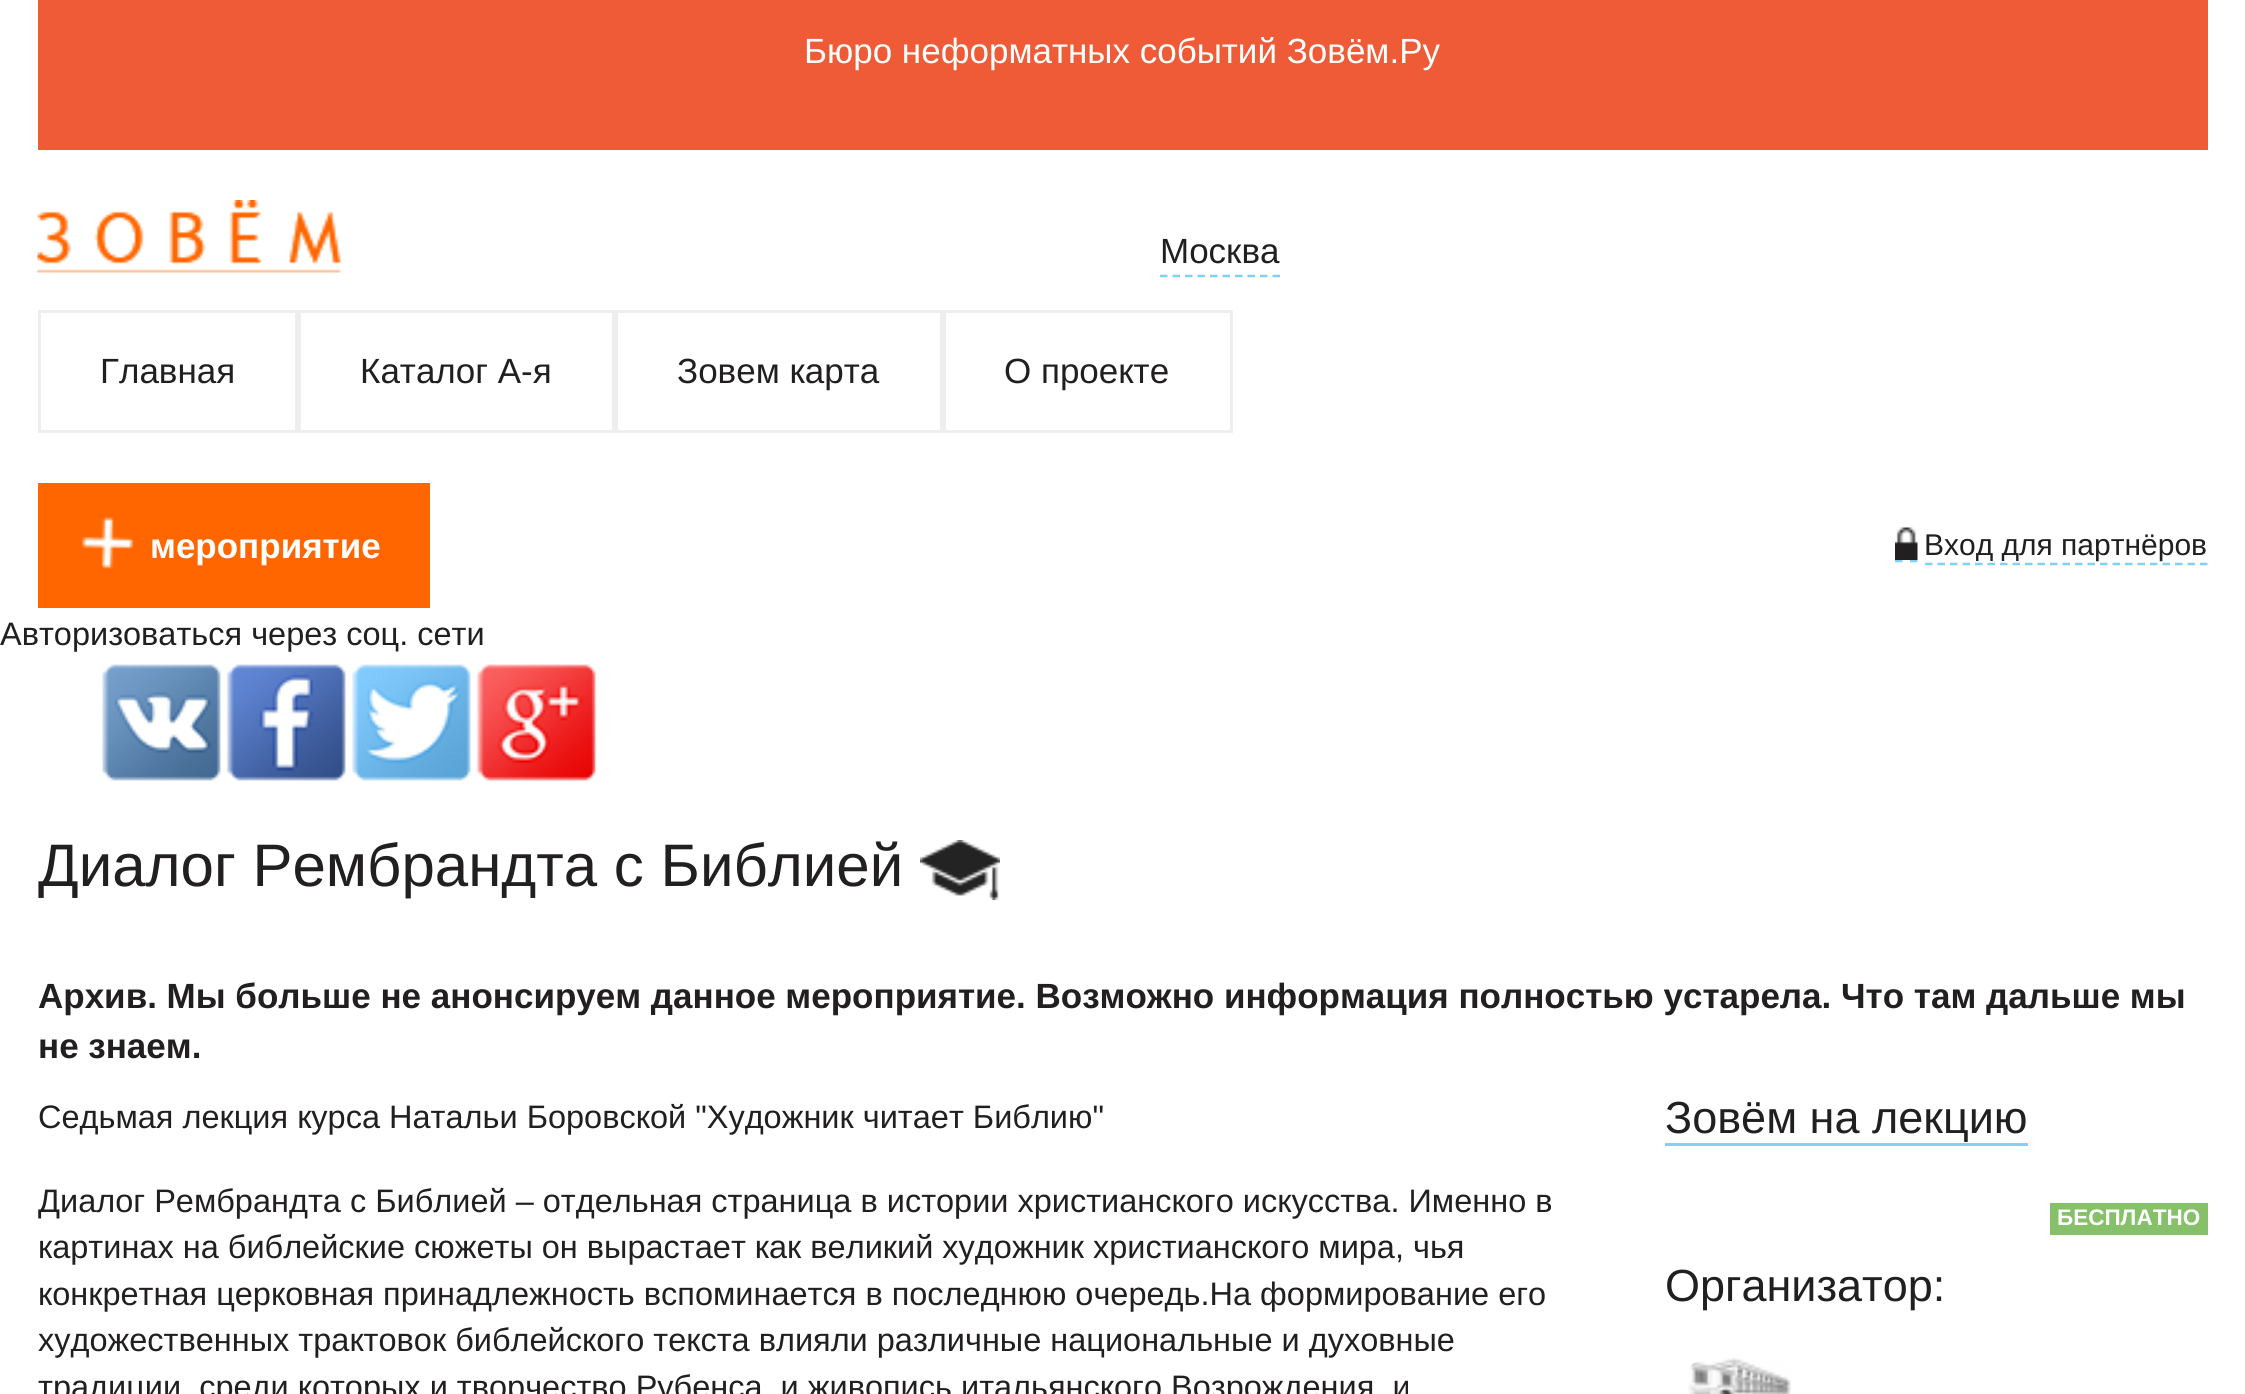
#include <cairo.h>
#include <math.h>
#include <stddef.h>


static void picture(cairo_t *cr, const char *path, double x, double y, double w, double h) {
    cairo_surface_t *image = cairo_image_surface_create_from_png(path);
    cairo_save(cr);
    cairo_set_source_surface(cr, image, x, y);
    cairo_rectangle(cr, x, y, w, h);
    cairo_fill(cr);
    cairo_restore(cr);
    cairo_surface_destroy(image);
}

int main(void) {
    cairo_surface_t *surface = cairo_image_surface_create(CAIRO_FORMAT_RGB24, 2245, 1394);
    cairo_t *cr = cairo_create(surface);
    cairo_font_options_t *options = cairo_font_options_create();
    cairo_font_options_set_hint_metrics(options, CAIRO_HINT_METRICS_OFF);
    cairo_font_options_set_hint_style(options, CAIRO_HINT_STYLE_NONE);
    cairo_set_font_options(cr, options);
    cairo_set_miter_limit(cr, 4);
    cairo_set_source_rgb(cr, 1, 1, 1);
    cairo_paint(cr);
    cairo_set_source_rgb(cr, 0.937, 0.357, 0.216);
    cairo_rectangle(cr, 38, 0, 2170, 150);
    cairo_fill(cr);
    cairo_select_font_face(cr, "Liberation Sans", CAIRO_FONT_SLANT_NORMAL, CAIRO_FONT_WEIGHT_NORMAL);
    cairo_set_font_size(cr, 35);
    cairo_set_source_rgb(cr, 1, 1, 1);
    cairo_move_to(cr, 804, 63);
    cairo_show_text(cr, "Бюро неформатных событий Зовём.Ру");
    picture(cr, "img1.png", 37, 200, 304, 73);
    cairo_new_path(cr);
    cairo_move_to(cr, 1160, 276);
    cairo_line_to(cr, 1280, 276);
    cairo_set_source_rgb(cr, 0.514, 0.816, 0.965);
    cairo_set_line_width(cr, 2.5);
    cairo_set_dash(cr, (double[]){7.5, 5}, 2, 0);
    cairo_stroke(cr);
    cairo_set_source_rgb(cr, 0.133, 0.122, 0.125);
    cairo_move_to(cr, 1160, 263);
    cairo_show_text(cr, "Москва");
    cairo_rectangle(cr, 39.5, 311.5, 257, 120);
    cairo_set_source_rgb(cr, 0.933, 0.933, 0.933);
    cairo_set_line_width(cr, 3);
    cairo_set_dash(cr, NULL, 0, 0);
    cairo_stroke(cr);
    cairo_set_source_rgb(cr, 0.133, 0.122, 0.125);
    cairo_move_to(cr, 100, 383);
    cairo_show_text(cr, "Главная");
    cairo_rectangle(cr, 299.5, 311.5, 314, 120);
    cairo_set_source_rgb(cr, 0.933, 0.933, 0.933);
    cairo_stroke(cr);
    cairo_set_source_rgb(cr, 0.133, 0.122, 0.125);
    cairo_move_to(cr, 360, 383);
    cairo_show_text(cr, "Каталог А-я");
    cairo_rectangle(cr, 616.5, 311.5, 325, 120);
    cairo_set_source_rgb(cr, 0.933, 0.933, 0.933);
    cairo_stroke(cr);
    cairo_set_source_rgb(cr, 0.133, 0.122, 0.125);
    cairo_move_to(cr, 677, 383);
    cairo_show_text(cr, "Зовем карта");
    cairo_rectangle(cr, 944.5, 311.5, 287, 120);
    cairo_set_source_rgb(cr, 0.933, 0.933, 0.933);
    cairo_stroke(cr);
    cairo_set_source_rgb(cr, 0.133, 0.122, 0.125);
    cairo_move_to(cr, 1004, 383);
    cairo_show_text(cr, "О проекте");
    cairo_new_path(cr);
    cairo_move_to(cr, 1895, 561);
    cairo_line_to(cr, 1902.5, 561);
    cairo_move_to(cr, 1910, 561);
    cairo_line_to(cr, 1917.5, 561);
    cairo_set_source_rgb(cr, 0.514, 0.816, 0.965);
    cairo_set_line_width(cr, 2.5);
    cairo_stroke(cr);
    cairo_new_path(cr);
    cairo_move_to(cr, 1925, 564);
    cairo_line_to(cr, 2207.5, 564);
    cairo_set_dash(cr, (double[]){7.5, 5}, 2, 0);
    cairo_stroke(cr);
    picture(cr, "img2.png", 1895, 527, 23, 33);
    cairo_set_font_size(cr, 30);
    cairo_set_source_rgb(cr, 0.133, 0.122, 0.125);
    cairo_move_to(cr, 1924, 555);
    cairo_show_text(cr, "Вход для партнёров");
    cairo_set_font_size(cr, 32.5);
    cairo_move_to(cr, 0, 645);
    cairo_show_text(cr, "Авторизоваться через соц. сети");
    picture(cr, "img3.png", 102, 664, 119, 117);
    picture(cr, "img4.png", 226, 664, 120, 117);
    picture(cr, "img5.png", 352, 664, 119, 117);
    picture(cr, "img6.png", 476, 664, 120, 117);
    cairo_set_source_rgb(cr, 1, 0.4, 0);
    cairo_rectangle(cr, 38, 483, 392, 125);
    cairo_fill(cr);
    picture(cr, "img7.png", 81, 517, 53, 52);
    cairo_select_font_face(cr, "Liberation Sans", CAIRO_FONT_SLANT_NORMAL, CAIRO_FONT_WEIGHT_BOLD);
    cairo_set_font_size(cr, 35);
    cairo_set_source_rgb(cr, 1, 1, 1);
    cairo_move_to(cr, 150, 558);
    cairo_show_text(cr, "мероприятие");
    cairo_save(cr);
    cairo_rectangle(cr, 38, 835, 2170, 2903);
    cairo_clip(cr);
    cairo_select_font_face(cr, "Liberation Sans", CAIRO_FONT_SLANT_NORMAL, CAIRO_FONT_WEIGHT_NORMAL);
    cairo_set_font_size(cr, 60);
    cairo_set_source_rgb(cr, 0.133, 0.122, 0.125);
    cairo_move_to(cr, 38, 886);
    cairo_show_text(cr, "Диалог Рембрандта с Библией");
    cairo_restore(cr);
    picture(cr, "img8.png", 920, 840, 80, 60);
    cairo_set_source_rgb(cr, 0.133, 0.122, 0.125);
    cairo_move_to(cr, 38, 1008);
    cairo_show_text(cr, "Архив. Мы больше не анонсируем данное мероприятие. Возможно информация полностью устарела. Что там дальше мы");
    cairo_move_to(cr, 38, 1058);
    cairo_show_text(cr, "не знаем.");
    cairo_select_font_face(cr, "Liberation Sans", CAIRO_FONT_SLANT_NORMAL, CAIRO_FONT_WEIGHT_NORMAL);
    cairo_set_font_size(cr, 32.5);
    cairo_move_to(cr, 38, 1128);
    cairo_show_text(cr, "Седьмая лекция курса Натальи Боровской \"Художник читает Библию\"");
    cairo_save(cr);
    cairo_rectangle(cr, 38, 835, 2170, 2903);
    cairo_clip(cr);
    cairo_move_to(cr, 38, 1212);
    cairo_show_text(cr, "Диалог Рембрандта с Библией – отдельная страница в истории христианского искусства. Именно в");
    cairo_restore(cr);
    cairo_move_to(cr, 38, 1258);
    cairo_show_text(cr, "картинах на библейские сюжеты он вырастает как великий художник христианского мира, чья");
    cairo_move_to(cr, 38, 1305);
    cairo_show_text(cr, "конкретная церковная принадлежность вспоминается в последнюю очередь.На формирование его");
    cairo_move_to(cr, 38, 1351);
    cairo_show_text(cr, "художественных трактовок библейского текста влияли различные национальные и духовные");
    cairo_move_to(cr, 38, 1398);
    cairo_show_text(cr, "традиции, среди которых и творчество Рубенса, и живопись итальянского Возрождения, и");
    cairo_set_font_size(cr, 45);
    cairo_move_to(cr, 1665, 1133);
    cairo_show_text(cr, "Зовём на лекцию");
    cairo_set_source_rgb(cr, 0.514, 0.816, 0.965);
    cairo_rectangle(cr, 1665, 1143, 363, 3);
    cairo_fill(cr);
    cairo_set_source_rgb(cr, 0.525, 0.757, 0.416);
    cairo_rectangle(cr, 2050, 1203, 158, 32);
    cairo_fill(cr);
    cairo_select_font_face(cr, "Liberation Sans", CAIRO_FONT_SLANT_NORMAL, CAIRO_FONT_WEIGHT_BOLD);
    cairo_set_font_size(cr, 22.5);
    cairo_set_source_rgb(cr, 1, 1, 1);
    cairo_move_to(cr, 2057, 1225);
    cairo_show_text(cr, "БЕСПЛАТНО");
    cairo_select_font_face(cr, "Liberation Sans", CAIRO_FONT_SLANT_NORMAL, CAIRO_FONT_WEIGHT_NORMAL);
    cairo_set_font_size(cr, 45);
    cairo_set_source_rgb(cr, 0.133, 0.122, 0.125);
    cairo_move_to(cr, 1665, 1301);
    cairo_show_text(cr, "Организатор:");
    picture(cr, "img9.png", 1688, 1357, 103, 37);
    cairo_surface_write_to_png(surface, "page.png");
    cairo_font_options_destroy(options);
    cairo_destroy(cr);
    cairo_surface_destroy(surface);
    return 0;
}
